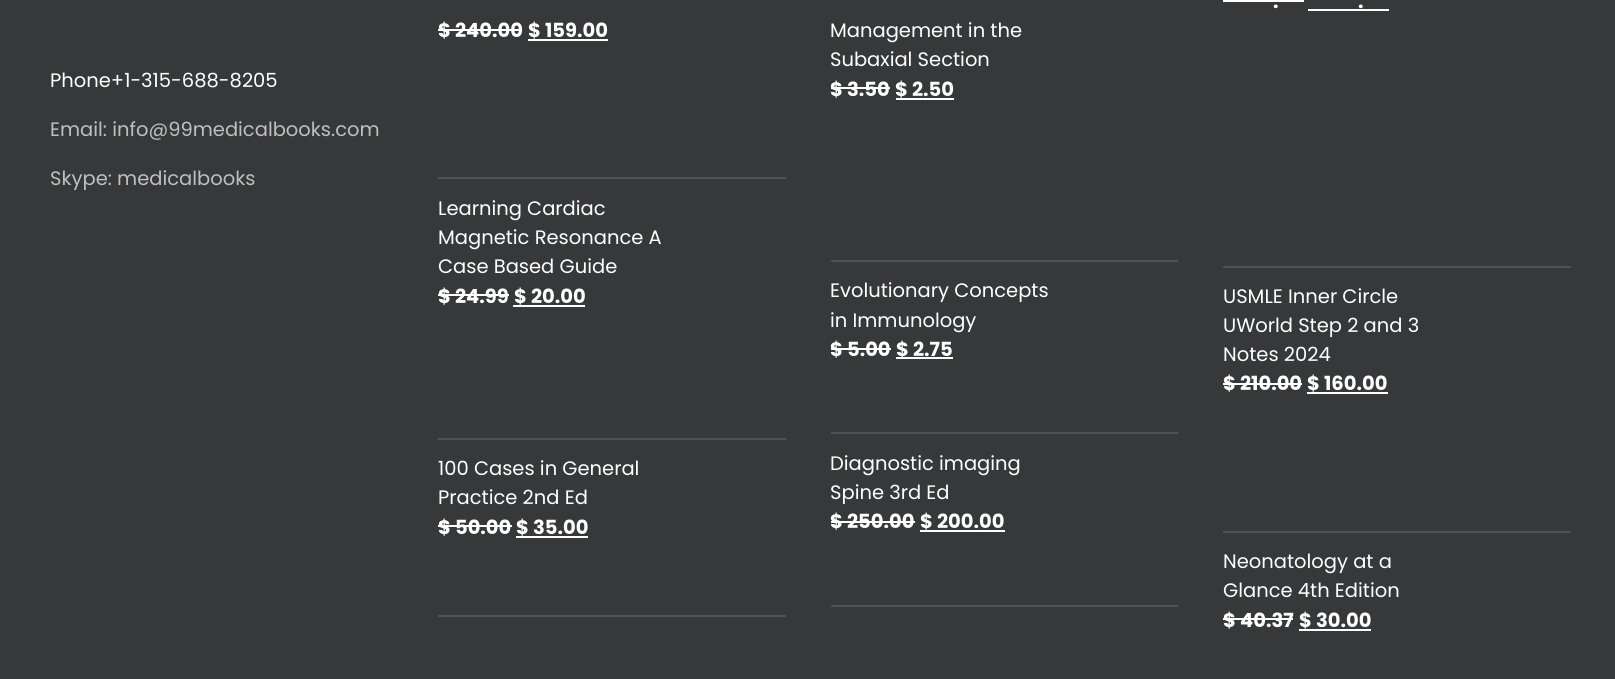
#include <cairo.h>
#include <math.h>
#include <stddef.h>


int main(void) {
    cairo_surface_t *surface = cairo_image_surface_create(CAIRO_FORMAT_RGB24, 1615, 679);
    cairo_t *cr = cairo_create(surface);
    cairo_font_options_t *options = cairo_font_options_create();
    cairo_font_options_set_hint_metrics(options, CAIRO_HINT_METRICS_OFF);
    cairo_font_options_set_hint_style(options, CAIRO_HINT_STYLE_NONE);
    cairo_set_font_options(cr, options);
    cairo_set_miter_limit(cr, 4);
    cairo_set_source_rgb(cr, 0.212, 0.22, 0.224);
    cairo_paint(cr);
    cairo_select_font_face(cr, "Poppins", CAIRO_FONT_SLANT_NORMAL, CAIRO_FONT_WEIGHT_NORMAL);
    cairo_set_font_size(cr, 19.5);
    cairo_set_source_rgb(cr, 1, 1, 1);
    cairo_move_to(cr, 50, 87);
    cairo_show_text(cr, "Phone+1-315-688-8205");
    cairo_set_source_rgb(cr, 0.749, 0.749, 0.749);
    cairo_move_to(cr, 50, 136);
    cairo_show_text(cr, "Email: info@99medicalbooks.com");
    cairo_move_to(cr, 50, 185);
    cairo_show_text(cr, "Skype: medicalbooks");
    cairo_set_source_rgb(cr, 0.314, 0.318, 0.322);
    cairo_rectangle(cr, 438, 177, 348, 2);
    cairo_fill(cr);
    cairo_select_font_face(cr, "Poppins", CAIRO_FONT_SLANT_NORMAL, CAIRO_FONT_WEIGHT_BOLD);
    cairo_set_source_rgb(cr, 1, 1, 1);
    cairo_move_to(cr, 438, 37);
    cairo_show_text(cr, "$ 240.00");
    cairo_rectangle(cr, 438, 29, 84, 2);
    cairo_fill(cr);
    cairo_move_to(cr, 528, 37);
    cairo_show_text(cr, "$ 159.00");
    cairo_rectangle(cr, 528, 39, 80, 2);
    cairo_fill(cr);
    cairo_set_source_rgb(cr, 0.314, 0.318, 0.322);
    cairo_rectangle(cr, 438, 438, 348, 2);
    cairo_fill(cr);
    cairo_select_font_face(cr, "Poppins", CAIRO_FONT_SLANT_NORMAL, CAIRO_FONT_WEIGHT_NORMAL);
    cairo_set_source_rgb(cr, 1, 1, 1);
    cairo_move_to(cr, 438, 215);
    cairo_show_text(cr, "Learning Cardiac");
    cairo_move_to(cr, 438, 244);
    cairo_show_text(cr, "Magnetic Resonance A");
    cairo_move_to(cr, 438, 273);
    cairo_show_text(cr, "Case Based Guide");
    cairo_select_font_face(cr, "Poppins", CAIRO_FONT_SLANT_NORMAL, CAIRO_FONT_WEIGHT_BOLD);
    cairo_move_to(cr, 438, 303);
    cairo_show_text(cr, "$ 24.99");
    cairo_rectangle(cr, 438, 294, 71, 2);
    cairo_fill(cr);
    cairo_move_to(cr, 514, 303);
    cairo_show_text(cr, "$ 20.00");
    cairo_rectangle(cr, 513, 305, 72, 2);
    cairo_fill(cr);
    cairo_set_source_rgb(cr, 0.314, 0.318, 0.322);
    cairo_rectangle(cr, 438, 615, 348, 2);
    cairo_fill(cr);
    cairo_select_font_face(cr, "Poppins", CAIRO_FONT_SLANT_NORMAL, CAIRO_FONT_WEIGHT_NORMAL);
    cairo_set_source_rgb(cr, 1, 1, 1);
    cairo_move_to(cr, 438, 475);
    cairo_show_text(cr, "100 Cases in General");
    cairo_move_to(cr, 438, 504);
    cairo_show_text(cr, "Practice 2nd Ed");
    cairo_select_font_face(cr, "Poppins", CAIRO_FONT_SLANT_NORMAL, CAIRO_FONT_WEIGHT_BOLD);
    cairo_move_to(cr, 438, 534);
    cairo_show_text(cr, "$ 50.00");
    cairo_rectangle(cr, 438, 525, 74, 2);
    cairo_fill(cr);
    cairo_move_to(cr, 516, 534);
    cairo_show_text(cr, "$ 35.00");
    cairo_rectangle(cr, 516, 536, 72, 2);
    cairo_fill(cr);
    cairo_set_source_rgb(cr, 0.314, 0.318, 0.322);
    cairo_rectangle(cr, 831, 260, 347, 2);
    cairo_fill(cr);
    cairo_select_font_face(cr, "Poppins", CAIRO_FONT_SLANT_NORMAL, CAIRO_FONT_WEIGHT_NORMAL);
    cairo_set_source_rgb(cr, 1, 1, 1);
    cairo_move_to(cr, 830, 37);
    cairo_show_text(cr, "Management in the");
    cairo_move_to(cr, 830, 66);
    cairo_show_text(cr, "Subaxial Section");
    cairo_select_font_face(cr, "Poppins", CAIRO_FONT_SLANT_NORMAL, CAIRO_FONT_WEIGHT_BOLD);
    cairo_move_to(cr, 830, 96);
    cairo_show_text(cr, "$ 3.50");
    cairo_rectangle(cr, 831, 87, 59, 2);
    cairo_fill(cr);
    cairo_move_to(cr, 895, 96);
    cairo_show_text(cr, "$ 2.50");
    cairo_rectangle(cr, 896, 98, 58, 2);
    cairo_fill(cr);
    cairo_set_source_rgb(cr, 0.314, 0.318, 0.322);
    cairo_rectangle(cr, 831, 432, 347, 2);
    cairo_fill(cr);
    cairo_select_font_face(cr, "Poppins", CAIRO_FONT_SLANT_NORMAL, CAIRO_FONT_WEIGHT_NORMAL);
    cairo_set_source_rgb(cr, 1, 1, 1);
    cairo_move_to(cr, 830, 297);
    cairo_show_text(cr, "Evolutionary Concepts");
    cairo_move_to(cr, 830, 327);
    cairo_show_text(cr, "in Immunology");
    cairo_select_font_face(cr, "Poppins", CAIRO_FONT_SLANT_NORMAL, CAIRO_FONT_WEIGHT_BOLD);
    cairo_move_to(cr, 830, 356);
    cairo_show_text(cr, "$ 5.00");
    cairo_rectangle(cr, 831, 348, 60, 2);
    cairo_fill(cr);
    cairo_rectangle(cr, 896, 357, 57, 2);
    cairo_fill(cr);
    cairo_move_to(cr, 896, 356);
    cairo_show_text(cr, "$ 2.75");
    cairo_set_source_rgb(cr, 0.314, 0.318, 0.322);
    cairo_rectangle(cr, 831, 605, 347, 2);
    cairo_fill(cr);
    cairo_select_font_face(cr, "Poppins", CAIRO_FONT_SLANT_NORMAL, CAIRO_FONT_WEIGHT_NORMAL);
    cairo_set_source_rgb(cr, 1, 1, 1);
    cairo_move_to(cr, 830, 470);
    cairo_show_text(cr, "Diagnostic imaging");
    cairo_move_to(cr, 830, 499);
    cairo_show_text(cr, "Spine 3rd Ed");
    cairo_select_font_face(cr, "Poppins", CAIRO_FONT_SLANT_NORMAL, CAIRO_FONT_WEIGHT_BOLD);
    cairo_move_to(cr, 830, 528);
    cairo_show_text(cr, "$ 250.00");
    cairo_rectangle(cr, 831, 521, 84, 2);
    cairo_fill(cr);
    cairo_move_to(cr, 920, 528);
    cairo_show_text(cr, "$ 200.00");
    cairo_rectangle(cr, 920, 530, 85, 2);
    cairo_fill(cr);
    cairo_set_source_rgb(cr, 0.314, 0.318, 0.322);
    cairo_rectangle(cr, 1223, 266, 348, 2);
    cairo_fill(cr);
    cairo_set_source_rgb(cr, 1, 1, 1);
    cairo_move_to(cr, 1273, 8);
    cairo_show_text(cr, ".");
    cairo_rectangle(cr, 1223, 0, 81, 2);
    cairo_fill(cr);
    cairo_move_to(cr, 1358, 8);
    cairo_show_text(cr, ".");
    cairo_rectangle(cr, 1308, 9, 81, 2);
    cairo_fill(cr);
    cairo_set_source_rgb(cr, 0.314, 0.318, 0.322);
    cairo_rectangle(cr, 1223, 531, 348, 2);
    cairo_fill(cr);
    cairo_select_font_face(cr, "Poppins", CAIRO_FONT_SLANT_NORMAL, CAIRO_FONT_WEIGHT_NORMAL);
    cairo_set_source_rgb(cr, 1, 1, 1);
    cairo_move_to(cr, 1223, 303);
    cairo_show_text(cr, "USMLE Inner Circle");
    cairo_move_to(cr, 1223, 332);
    cairo_show_text(cr, "UWorld Step 2 and 3");
    cairo_move_to(cr, 1223, 361);
    cairo_show_text(cr, "Notes 2024");
    cairo_select_font_face(cr, "Poppins", CAIRO_FONT_SLANT_NORMAL, CAIRO_FONT_WEIGHT_BOLD);
    cairo_move_to(cr, 1223, 390);
    cairo_show_text(cr, "$ 210.00");
    cairo_rectangle(cr, 1223, 383, 79, 2);
    cairo_fill(cr);
    cairo_move_to(cr, 1307, 390);
    cairo_show_text(cr, "$ 160.00");
    cairo_rectangle(cr, 1307, 392, 81, 2);
    cairo_fill(cr);
    cairo_select_font_face(cr, "Poppins", CAIRO_FONT_SLANT_NORMAL, CAIRO_FONT_WEIGHT_NORMAL);
    cairo_move_to(cr, 1223, 568);
    cairo_show_text(cr, "Neonatology at a");
    cairo_move_to(cr, 1223, 597);
    cairo_show_text(cr, "Glance 4th Edition");
    cairo_select_font_face(cr, "Poppins", CAIRO_FONT_SLANT_NORMAL, CAIRO_FONT_WEIGHT_BOLD);
    cairo_move_to(cr, 1223, 627);
    cairo_show_text(cr, "$ 40.37");
    cairo_rectangle(cr, 1223, 618, 70, 2);
    cairo_fill(cr);
    cairo_move_to(cr, 1299, 627);
    cairo_show_text(cr, "$ 30.00");
    cairo_rectangle(cr, 1299, 629, 72, 2);
    cairo_fill(cr);
    cairo_surface_write_to_png(surface, "page.png");
    cairo_font_options_destroy(options);
    cairo_destroy(cr);
    cairo_surface_destroy(surface);
    return 0;
}
